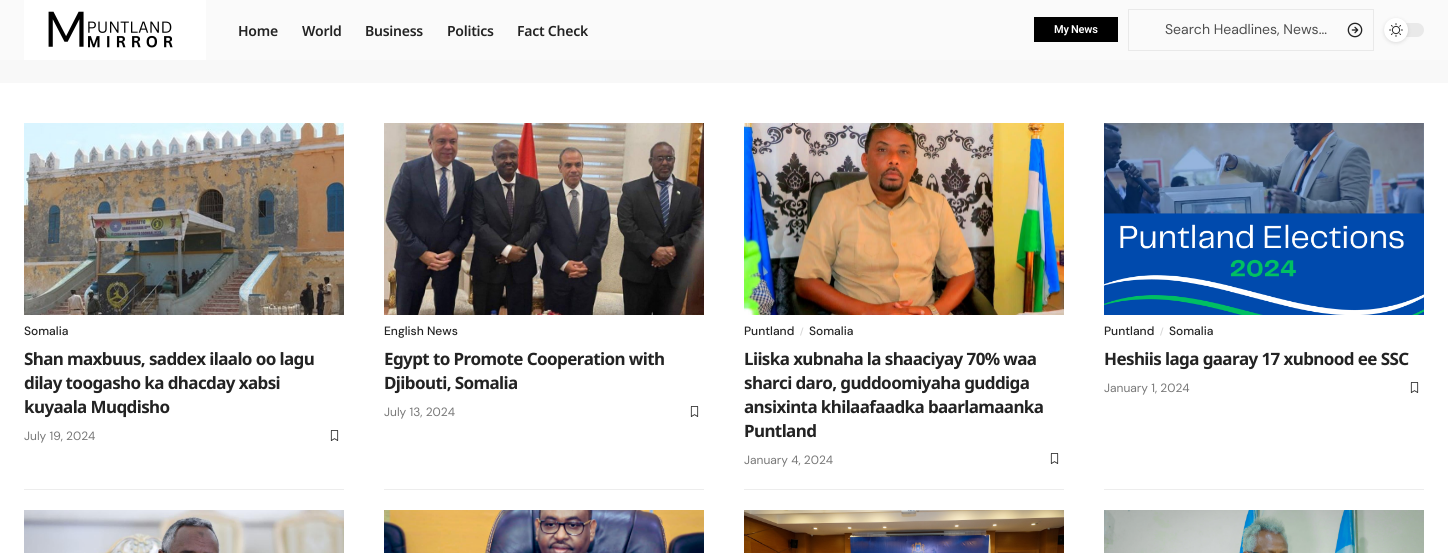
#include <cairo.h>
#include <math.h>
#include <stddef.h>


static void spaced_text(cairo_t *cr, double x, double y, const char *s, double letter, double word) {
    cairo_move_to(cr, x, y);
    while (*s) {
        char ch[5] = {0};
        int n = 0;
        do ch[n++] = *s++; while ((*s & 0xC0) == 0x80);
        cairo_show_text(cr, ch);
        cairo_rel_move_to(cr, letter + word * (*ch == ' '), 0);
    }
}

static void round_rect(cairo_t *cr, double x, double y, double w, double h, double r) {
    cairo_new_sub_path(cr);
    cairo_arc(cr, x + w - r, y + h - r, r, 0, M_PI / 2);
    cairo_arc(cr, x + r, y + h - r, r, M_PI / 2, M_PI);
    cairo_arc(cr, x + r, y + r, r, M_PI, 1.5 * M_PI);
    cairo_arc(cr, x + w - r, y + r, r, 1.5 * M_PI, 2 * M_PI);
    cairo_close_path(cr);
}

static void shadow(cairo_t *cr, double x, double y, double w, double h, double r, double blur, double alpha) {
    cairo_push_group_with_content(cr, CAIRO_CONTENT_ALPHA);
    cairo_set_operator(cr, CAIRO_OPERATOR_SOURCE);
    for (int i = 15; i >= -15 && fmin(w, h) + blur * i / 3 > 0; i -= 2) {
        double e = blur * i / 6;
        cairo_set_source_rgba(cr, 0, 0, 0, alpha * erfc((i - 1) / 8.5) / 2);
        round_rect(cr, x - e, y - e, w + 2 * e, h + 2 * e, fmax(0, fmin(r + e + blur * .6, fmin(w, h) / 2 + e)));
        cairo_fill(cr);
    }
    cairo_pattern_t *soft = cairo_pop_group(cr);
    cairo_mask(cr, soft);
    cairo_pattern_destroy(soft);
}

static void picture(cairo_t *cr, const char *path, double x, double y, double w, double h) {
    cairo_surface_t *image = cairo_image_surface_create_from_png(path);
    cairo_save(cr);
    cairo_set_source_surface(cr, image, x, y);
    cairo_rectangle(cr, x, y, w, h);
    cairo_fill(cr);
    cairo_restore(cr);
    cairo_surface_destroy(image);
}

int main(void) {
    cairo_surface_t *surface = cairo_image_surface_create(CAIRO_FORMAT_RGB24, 1448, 553);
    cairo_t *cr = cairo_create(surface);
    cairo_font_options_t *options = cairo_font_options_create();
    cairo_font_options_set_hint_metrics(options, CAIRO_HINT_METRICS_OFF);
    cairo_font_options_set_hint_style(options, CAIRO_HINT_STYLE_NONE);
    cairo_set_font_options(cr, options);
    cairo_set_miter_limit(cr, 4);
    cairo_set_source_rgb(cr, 1, 1, 1);
    cairo_paint(cr);
    cairo_set_source_rgb(cr, 0.98, 0.98, 0.98);
    cairo_rectangle(cr, 0, 0, 1448, 60);
    cairo_fill(cr);
    picture(cr, "img1.png", 24, 0, 182, 60);
    cairo_select_font_face(cr, "Noto Sans SemiBold", CAIRO_FONT_SLANT_NORMAL, CAIRO_FONT_WEIGHT_NORMAL);
    cairo_set_font_size(cr, 14);
    cairo_set_source_rgb(cr, 0.137, 0.137, 0.137);
    spaced_text(cr, 238, 36, "Home", -0.25, 0);
    spaced_text(cr, 302, 36, "World", -0.25, 0);
    spaced_text(cr, 365, 36, "Business", -0.25, 0);
    spaced_text(cr, 447, 36, "Politics", -0.25, 0);
    spaced_text(cr, 517, 36, "Fact Check", -0.25, 0);
    cairo_set_source_rgb(cr, 0, 0, 0);
    cairo_rectangle(cr, 1034, 17, 84, 25);
    cairo_fill(cr);
    cairo_select_font_face(cr, "Roboto SemiBold", CAIRO_FONT_SLANT_NORMAL, CAIRO_FONT_WEIGHT_NORMAL);
    cairo_set_font_size(cr, 11);
    cairo_set_source_rgb(cr, 1, 1, 1);
    spaced_text(cr, 1054, 33, "My News", -0.25, 0);
    cairo_rectangle(cr, 1128.5, 9.5, 245, 41);
    cairo_set_source_rgb(cr, 0.914, 0.914, 0.914);
    cairo_set_line_width(cr, 1);
    cairo_stroke(cr);
    cairo_select_font_face(cr, "DM Sans", CAIRO_FONT_SLANT_NORMAL, CAIRO_FONT_WEIGHT_NORMAL);
    cairo_set_font_size(cr, 14);
    cairo_set_source_rgb(cr, 0.306, 0.306, 0.306);
    cairo_move_to(cr, 1165, 34);
    cairo_show_text(cr, "Search Headlines, News...");
    picture(cr, "img2.png", 1347, 22, 16, 16);
    cairo_set_source_rgb(cr, 0.914, 0.914, 0.914);
    round_rect(cr, 1384, 23, 40, 14, 7);
    cairo_fill(cr);
    cairo_set_source_rgb(cr, 0, 0, 0);
    shadow(cr, 1384, 19, 24, 24, 12, 2, 0.12);
    cairo_set_source_rgb(cr, 1, 1, 1);
    cairo_arc(cr, 1396, 30, 12, 0, 2 * M_PI);
    cairo_fill(cr);
    picture(cr, "img3.png", 1389, 23, 14, 14);
    cairo_set_source_rgb(cr, 0.969, 0.969, 0.969);
    cairo_rectangle(cr, 0, 60, 1448, 23);
    cairo_fill(cr);
    picture(cr, "img4.png", 24, 123, 320, 192);
    cairo_select_font_face(cr, "DM Sans Medium", CAIRO_FONT_SLANT_NORMAL, CAIRO_FONT_WEIGHT_NORMAL);
    cairo_set_font_size(cr, 12);
    cairo_set_source_rgb(cr, 0.137, 0.137, 0.137);
    cairo_move_to(cr, 24, 335);
    cairo_show_text(cr, "Somalia");
    cairo_select_font_face(cr, "Noto Sans", CAIRO_FONT_SLANT_NORMAL, CAIRO_FONT_WEIGHT_BOLD);
    cairo_set_font_size(cr, 17);
    spaced_text(cr, 24, 365, "Shan maxbuus, saddex ilaalo oo lagu", -0.6, 0);
    spaced_text(cr, 24, 389, "dilay toogasho ka dhacday xabsi", -0.6, 0);
    spaced_text(cr, 24, 413, "kuyaala Muqdisho", -0.6, 0);
    cairo_select_font_face(cr, "DM Sans", CAIRO_FONT_SLANT_NORMAL, CAIRO_FONT_WEIGHT_NORMAL);
    cairo_set_font_size(cr, 12);
    cairo_set_source_rgb(cr, 0.467, 0.467, 0.467);
    cairo_move_to(cr, 24, 440);
    cairo_show_text(cr, "July 19, 2024");
    picture(cr, "img5.png", 330, 430, 9, 11);
    cairo_set_source_rgb(cr, 0.929, 0.929, 0.929);
    cairo_rectangle(cr, 24, 489, 320, 1);
    cairo_fill(cr);
    picture(cr, "img6.png", 384, 123, 320, 192);
    cairo_select_font_face(cr, "DM Sans Medium", CAIRO_FONT_SLANT_NORMAL, CAIRO_FONT_WEIGHT_NORMAL);
    cairo_set_source_rgb(cr, 0.137, 0.137, 0.137);
    cairo_move_to(cr, 384, 335);
    cairo_show_text(cr, "English News");
    cairo_select_font_face(cr, "Noto Sans", CAIRO_FONT_SLANT_NORMAL, CAIRO_FONT_WEIGHT_BOLD);
    cairo_set_font_size(cr, 17);
    spaced_text(cr, 384, 365, "Egypt to Promote Cooperation with", -0.6, 0);
    spaced_text(cr, 384, 389, "Djibouti, Somalia", -0.6, 0);
    cairo_select_font_face(cr, "DM Sans", CAIRO_FONT_SLANT_NORMAL, CAIRO_FONT_WEIGHT_NORMAL);
    cairo_set_font_size(cr, 12);
    cairo_set_source_rgb(cr, 0.467, 0.467, 0.467);
    cairo_move_to(cr, 384, 416);
    cairo_show_text(cr, "July 13, 2024");
    picture(cr, "img5.png", 690, 406, 9, 11);
    cairo_set_source_rgb(cr, 0.929, 0.929, 0.929);
    cairo_rectangle(cr, 384, 489, 320, 1);
    cairo_fill(cr);
    picture(cr, "img7.png", 744, 123, 320, 192);
    cairo_select_font_face(cr, "DM Sans Medium", CAIRO_FONT_SLANT_NORMAL, CAIRO_FONT_WEIGHT_NORMAL);
    cairo_set_source_rgb(cr, 0.137, 0.137, 0.137);
    cairo_move_to(cr, 744, 335);
    cairo_show_text(cr, "Puntland");
    cairo_set_source_rgb(cr, 0.839, 0.839, 0.839);
    cairo_new_path(cr);
    cairo_move_to(cr, 802.5, 327.5);
    cairo_line_to(cr, 803.5, 327.5);
    cairo_line_to(cr, 801, 335.5);
    cairo_line_to(cr, 800, 335.5);
    cairo_close_path(cr);
    cairo_fill(cr);
    cairo_set_source_rgb(cr, 0.137, 0.137, 0.137);
    cairo_move_to(cr, 809, 335);
    cairo_show_text(cr, "Somalia");
    cairo_select_font_face(cr, "Noto Sans", CAIRO_FONT_SLANT_NORMAL, CAIRO_FONT_WEIGHT_BOLD);
    cairo_set_font_size(cr, 17);
    spaced_text(cr, 744, 365, "Liiska xubnaha la shaaciyay 70% waa", -0.6, 0);
    spaced_text(cr, 744, 389, "sharci daro, guddoomiyaha guddiga", -0.6, 0);
    spaced_text(cr, 744, 413, "ansixinta khilaafaadka baarlamaanka", -0.6, 0);
    spaced_text(cr, 744, 437, "Puntland", -0.6, 0);
    cairo_select_font_face(cr, "DM Sans", CAIRO_FONT_SLANT_NORMAL, CAIRO_FONT_WEIGHT_NORMAL);
    cairo_set_font_size(cr, 12);
    cairo_set_source_rgb(cr, 0.467, 0.467, 0.467);
    cairo_move_to(cr, 744, 464);
    cairo_show_text(cr, "January 4, 2024");
    picture(cr, "img5.png", 1050, 453, 9, 11);
    cairo_set_source_rgb(cr, 0.929, 0.929, 0.929);
    cairo_rectangle(cr, 744, 489, 320, 1);
    cairo_fill(cr);
    picture(cr, "img8.png", 1104, 123, 320, 192);
    cairo_select_font_face(cr, "DM Sans Medium", CAIRO_FONT_SLANT_NORMAL, CAIRO_FONT_WEIGHT_NORMAL);
    cairo_set_source_rgb(cr, 0.137, 0.137, 0.137);
    cairo_move_to(cr, 1104, 335);
    cairo_show_text(cr, "Puntland");
    cairo_set_source_rgb(cr, 0.839, 0.839, 0.839);
    cairo_new_path(cr);
    cairo_move_to(cr, 1162.5, 327.5);
    cairo_line_to(cr, 1163.5, 327.5);
    cairo_line_to(cr, 1161, 335.5);
    cairo_line_to(cr, 1160, 335.5);
    cairo_close_path(cr);
    cairo_fill(cr);
    cairo_set_source_rgb(cr, 0.137, 0.137, 0.137);
    cairo_move_to(cr, 1169, 335);
    cairo_show_text(cr, "Somalia");
    cairo_select_font_face(cr, "Noto Sans", CAIRO_FONT_SLANT_NORMAL, CAIRO_FONT_WEIGHT_BOLD);
    cairo_set_font_size(cr, 17);
    spaced_text(cr, 1104, 365, "Heshiis laga gaaray 17 xubnood ee SSC", -0.6, 0);
    cairo_select_font_face(cr, "DM Sans", CAIRO_FONT_SLANT_NORMAL, CAIRO_FONT_WEIGHT_NORMAL);
    cairo_set_font_size(cr, 12);
    cairo_set_source_rgb(cr, 0.467, 0.467, 0.467);
    cairo_move_to(cr, 1104, 392);
    cairo_show_text(cr, "January 1, 2024");
    picture(cr, "img5.png", 1410, 382, 9, 11);
    cairo_set_source_rgb(cr, 0.929, 0.929, 0.929);
    cairo_rectangle(cr, 1104, 489, 320, 1);
    cairo_fill(cr);
    picture(cr, "img9.png", 24, 510, 320, 43);
    picture(cr, "img10.png", 384, 510, 320, 43);
    picture(cr, "img11.png", 744, 510, 320, 43);
    picture(cr, "img12.png", 1104, 510, 320, 43);
    cairo_surface_write_to_png(surface, "page.png");
    cairo_font_options_destroy(options);
    cairo_destroy(cr);
    cairo_surface_destroy(surface);
    return 0;
}
